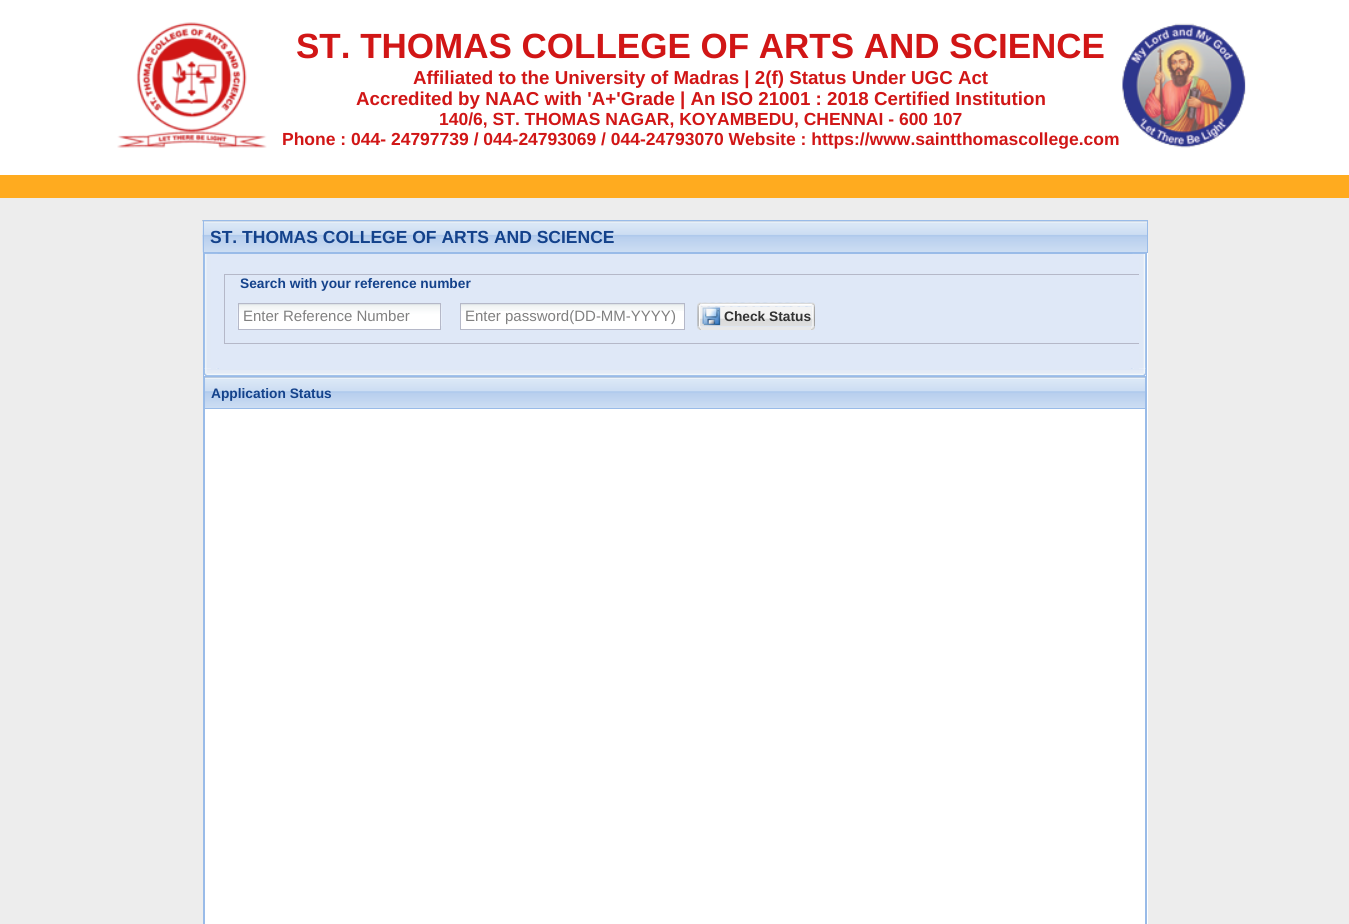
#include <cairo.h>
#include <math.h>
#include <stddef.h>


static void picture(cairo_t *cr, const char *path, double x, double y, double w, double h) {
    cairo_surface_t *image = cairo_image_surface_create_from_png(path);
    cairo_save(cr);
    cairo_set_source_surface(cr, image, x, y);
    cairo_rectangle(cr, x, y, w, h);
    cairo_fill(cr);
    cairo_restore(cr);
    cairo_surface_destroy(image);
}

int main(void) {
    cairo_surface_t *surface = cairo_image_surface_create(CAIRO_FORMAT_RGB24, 1349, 924);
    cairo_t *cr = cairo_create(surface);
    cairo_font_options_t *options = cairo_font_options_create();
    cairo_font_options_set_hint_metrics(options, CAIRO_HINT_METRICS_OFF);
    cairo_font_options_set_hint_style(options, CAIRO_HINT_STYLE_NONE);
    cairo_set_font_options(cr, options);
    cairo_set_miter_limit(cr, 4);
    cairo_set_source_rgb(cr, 0.929, 0.929, 0.929);
    cairo_paint(cr);
    cairo_set_source_rgb(cr, 1, 1, 1);
    cairo_rectangle(cr, 0, 0, 1349, 175);
    cairo_fill(cr);
    picture(cr, "img1.png", 117, 22, 150, 126);
    cairo_select_font_face(cr, "Liberation Sans", CAIRO_FONT_SLANT_NORMAL, CAIRO_FONT_WEIGHT_BOLD);
    cairo_set_font_size(cr, 35);
    cairo_set_source_rgb(cr, 0.82, 0.086, 0.086);
    cairo_move_to(cr, 296, 58);
    cairo_show_text(cr, "ST. THOMAS COLLEGE OF ARTS AND SCIENCE");
    cairo_set_font_size(cr, 18.75);
    cairo_move_to(cr, 413, 84);
    cairo_show_text(cr, "Affiliated to the University of Madras | 2(f) Status Under UGC Act");
    cairo_move_to(cr, 356, 105);
    cairo_show_text(cr, "Accredited by NAAC with 'A+'Grade | An ISO 21001 : 2018 Certified Institution");
    cairo_set_font_size(cr, 17.5);
    cairo_move_to(cr, 439, 125);
    cairo_show_text(cr, "140/6, ST. THOMAS NAGAR, KOYAMBEDU, CHENNAI - 600 107");
    cairo_move_to(cr, 282, 145);
    cairo_show_text(cr, "Phone : 044- 24797739 / 044-24793069 / 044-24793070 Website : https://www.saintthomascollege.com");
    picture(cr, "img2.png", 1122, 23, 124, 125);
    cairo_set_source_rgb(cr, 1, 0.671, 0.122);
    cairo_rectangle(cr, 0, 175, 1349, 23);
    cairo_fill(cr);
    picture(cr, "img3.png", 202, 220, 945, 33);
    cairo_rectangle(cr, 203.5, 220.5, 944, 32);
    cairo_set_source_rgb(cr, 0.6, 0.733, 0.91);
    cairo_set_line_width(cr, 1);
    cairo_stroke(cr);
    cairo_set_source_rgb(cr, 0.082, 0.259, 0.545);
    cairo_move_to(cr, 210, 243);
    cairo_show_text(cr, "ST. THOMAS COLLEGE OF ARTS AND SCIENCE");
    cairo_set_source_rgb(cr, 1, 1, 1);
    cairo_rectangle(cr, 204, 253, 944, 671);
    cairo_fill(cr);
    cairo_set_source_rgb(cr, 0.6, 0.733, 0.91);
    cairo_rectangle(cr, 1146, 253, 1, 671);
    cairo_fill(cr);
    cairo_rectangle(cr, 203, 253, 1, 671);
    cairo_fill(cr);
    cairo_rectangle(cr, 204, 253, 942, 1);
    cairo_fill(cr);
    picture(cr, "img4.png", 204, 253, 15, 116);
    picture(cr, "img5.png", 1131, 253, 15, 116);
    cairo_set_source_rgb(cr, 0.875, 0.91, 0.965);
    cairo_rectangle(cr, 211, 254, 928, 115);
    cairo_fill(cr);
    cairo_save(cr);
    cairo_rectangle(cr, 211, 261, 928, 108);
    cairo_clip(cr);
    cairo_rectangle(cr, 224.5, 274.5, 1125, 69);
    cairo_set_source_rgb(cr, 0.71, 0.722, 0.784);
    cairo_stroke(cr);
    cairo_restore(cr);
    cairo_set_font_size(cr, 13.75);
    cairo_set_source_rgb(cr, 0.082, 0.259, 0.545);
    cairo_move_to(cr, 240, 288);
    cairo_show_text(cr, "Search with your reference number");
    cairo_set_source_rgb(cr, 1, 1, 1);
    cairo_rectangle(cr, 239, 326, 201, 3);
    cairo_fill(cr);
    picture(cr, "img6.png", 237, 303, 205, 23);
    cairo_rectangle(cr, 238.5, 303.5, 202, 26);
    cairo_set_source_rgb(cr, 0.71, 0.722, 0.784);
    cairo_stroke(cr);
    cairo_select_font_face(cr, "Liberation Sans", CAIRO_FONT_SLANT_NORMAL, CAIRO_FONT_WEIGHT_NORMAL);
    cairo_set_font_size(cr, 15);
    cairo_set_source_rgb(cr, 0.502, 0.502, 0.502);
    cairo_move_to(cr, 243, 321);
    cairo_show_text(cr, "Enter Reference Number");
    cairo_set_source_rgb(cr, 1, 1, 1);
    cairo_rectangle(cr, 461, 311, 223, 18);
    cairo_fill(cr);
    picture(cr, "img7.png", 461, 304, 223, 7);
    cairo_rectangle(cr, 460.5, 303.5, 224, 26);
    cairo_set_source_rgb(cr, 0.71, 0.722, 0.784);
    cairo_stroke(cr);
    cairo_set_source_rgb(cr, 0.502, 0.502, 0.502);
    cairo_move_to(cr, 465, 321);
    cairo_show_text(cr, "Enter password(DD-MM-YYYY)");
    picture(cr, "img8.png", 697, 302, 5, 5);
    picture(cr, "img9.png", 701, 302, 111, 5);
    picture(cr, "img10.png", 811, 302, 4, 5);
    picture(cr, "img11.png", 697, 306, 5, 21);
    picture(cr, "img12.png", 701, 306, 111, 21);
    picture(cr, "img13.png", 702, 307, 19, 19);
    cairo_select_font_face(cr, "Liberation Sans", CAIRO_FONT_SLANT_NORMAL, CAIRO_FONT_WEIGHT_BOLD);
    cairo_set_font_size(cr, 13.75);
    cairo_set_source_rgb(cr, 0.2, 0.2, 0.2);
    cairo_move_to(cr, 724, 321);
    cairo_show_text(cr, "Check Status");
    picture(cr, "img14.png", 811, 306, 4, 21);
    picture(cr, "img15.png", 697, 326, 5, 4);
    cairo_set_source_rgb(cr, 0.91, 0.91, 0.91);
    cairo_rectangle(cr, 701, 327, 111, 3);
    cairo_fill(cr);
    picture(cr, "img16.png", 811, 326, 4, 4);
    picture(cr, "img17.png", 204, 368, 15, 8);
    picture(cr, "img18.png", 1131, 368, 15, 8);
    picture(cr, "img19.png", 211, 369, 928, 7);
    picture(cr, "img20.png", 203, 376, 944, 33);
    cairo_rectangle(cr, 204.5, 376.5, 941, 32);
    cairo_set_source_rgb(cr, 0.6, 0.733, 0.91);
    cairo_stroke(cr);
    cairo_set_source_rgb(cr, 0.082, 0.259, 0.545);
    cairo_move_to(cr, 211, 398);
    cairo_show_text(cr, "Application Status");
    cairo_set_source_rgb(cr, 0.6, 0.733, 0.91);
    cairo_rectangle(cr, 1145, 409, 1, 515);
    cairo_fill(cr);
    cairo_rectangle(cr, 204, 409, 1, 515);
    cairo_fill(cr);
    cairo_surface_write_to_png(surface, "page.png");
    cairo_font_options_destroy(options);
    cairo_destroy(cr);
    cairo_surface_destroy(surface);
    return 0;
}
